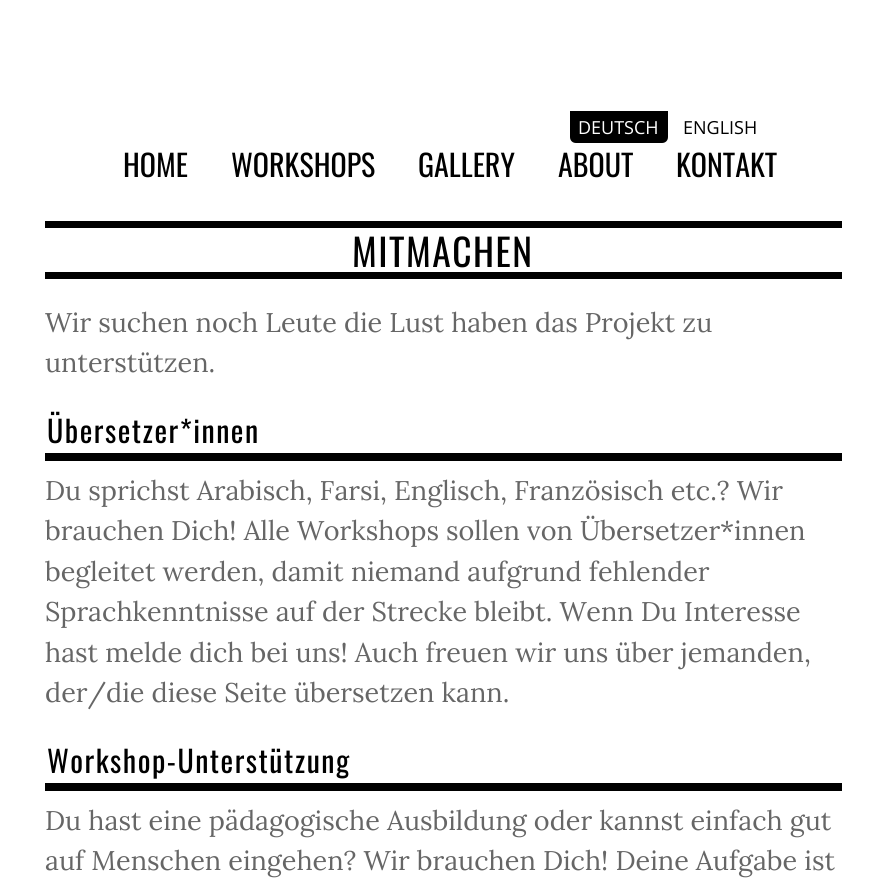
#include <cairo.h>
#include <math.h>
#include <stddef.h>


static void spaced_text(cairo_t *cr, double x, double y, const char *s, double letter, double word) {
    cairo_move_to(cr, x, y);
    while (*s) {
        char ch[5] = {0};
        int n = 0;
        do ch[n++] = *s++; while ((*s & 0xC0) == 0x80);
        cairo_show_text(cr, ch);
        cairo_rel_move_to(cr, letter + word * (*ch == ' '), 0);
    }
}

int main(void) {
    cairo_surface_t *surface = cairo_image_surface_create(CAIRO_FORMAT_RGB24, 886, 886);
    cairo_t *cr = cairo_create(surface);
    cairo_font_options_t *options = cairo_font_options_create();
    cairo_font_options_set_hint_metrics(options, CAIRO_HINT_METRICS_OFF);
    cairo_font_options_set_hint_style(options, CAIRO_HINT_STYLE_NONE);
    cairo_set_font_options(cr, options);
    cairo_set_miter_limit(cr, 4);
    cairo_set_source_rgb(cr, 1, 1, 1);
    cairo_paint(cr);
    cairo_set_source_rgb(cr, 0, 0, 0);
    cairo_new_path(cr);
    cairo_move_to(cr, 570, 111);
    cairo_line_to(cr, 668, 111);
    cairo_line_to(cr, 668, 137);
    cairo_curve_to(cr, 668, 140.5, 665.5, 143, 662, 143);
    cairo_line_to(cr, 576, 143);
    cairo_curve_to(cr, 572.5, 143, 570, 140.5, 570, 137);
    cairo_close_path(cr);
    cairo_fill(cr);
    cairo_select_font_face(cr, "Open Sans", CAIRO_FONT_SLANT_NORMAL, CAIRO_FONT_WEIGHT_NORMAL);
    cairo_set_font_size(cr, 18);
    cairo_set_source_rgb(cr, 1, 1, 1);
    cairo_move_to(cr, 578, 134);
    cairo_show_text(cr, "DEUTSCH");
    cairo_set_source_rgb(cr, 0, 0, 0);
    cairo_move_to(cr, 683, 134);
    cairo_show_text(cr, "ENGLISH");
    cairo_select_font_face(cr, "Oswald", CAIRO_FONT_SLANT_NORMAL, CAIRO_FONT_WEIGHT_NORMAL);
    cairo_set_font_size(cr, 30);
    cairo_move_to(cr, 123, 177);
    cairo_show_text(cr, "HOME");
    cairo_move_to(cr, 231, 177);
    cairo_show_text(cr, "WORKSHOPS");
    cairo_move_to(cr, 418, 177);
    cairo_show_text(cr, "GALLERY");
    cairo_move_to(cr, 558, 177);
    cairo_show_text(cr, "ABOUT");
    cairo_move_to(cr, 676, 177);
    cairo_show_text(cr, "KONTAKT");
    cairo_rectangle(cr, 45, 221, 797, 7);
    cairo_fill(cr);
    cairo_rectangle(cr, 45, 272, 797, 7);
    cairo_fill(cr);
    cairo_set_font_size(cr, 37.5);
    spaced_text(cr, 352, 267, "MITMACHEN", 1.5, 0);
    cairo_select_font_face(cr, "Lora", CAIRO_FONT_SLANT_NORMAL, CAIRO_FONT_WEIGHT_NORMAL);
    cairo_set_font_size(cr, 27);
    cairo_set_source_rgb(cr, 0.4, 0.4, 0.4);
    cairo_move_to(cr, 45, 332);
    cairo_show_text(cr, "Wir suchen noch Leute die Lust haben das Projekt zu");
    cairo_move_to(cr, 45, 372);
    cairo_show_text(cr, "unterstützen.");
    cairo_set_source_rgb(cr, 0, 0, 0);
    cairo_rectangle(cr, 45, 453, 797, 8);
    cairo_fill(cr);
    cairo_select_font_face(cr, "Oswald", CAIRO_FONT_SLANT_NORMAL, CAIRO_FONT_WEIGHT_NORMAL);
    cairo_set_font_size(cr, 30);
    spaced_text(cr, 47, 443, "Übersetzer*innen", 1.5, 0);
    cairo_select_font_face(cr, "Lora", CAIRO_FONT_SLANT_NORMAL, CAIRO_FONT_WEIGHT_NORMAL);
    cairo_set_font_size(cr, 27);
    cairo_set_source_rgb(cr, 0.4, 0.4, 0.4);
    cairo_move_to(cr, 45, 500);
    cairo_show_text(cr, "Du sprichst Arabisch, Farsi, Englisch, Französisch etc.? Wir");
    cairo_move_to(cr, 45, 540);
    cairo_show_text(cr, "brauchen Dich! Alle Workshops sollen von Übersetzer*innen");
    cairo_move_to(cr, 45, 581);
    cairo_show_text(cr, "begleitet werden, damit niemand aufgrund fehlender");
    cairo_move_to(cr, 45, 621);
    cairo_show_text(cr, "Sprachkenntnisse auf der Strecke bleibt. Wenn Du Interesse");
    cairo_move_to(cr, 45, 662);
    cairo_show_text(cr, "hast melde dich bei uns! Auch freuen wir uns über jemanden,");
    cairo_move_to(cr, 45, 702);
    cairo_show_text(cr, "der/die diese Seite übersetzen kann.");
    cairo_set_source_rgb(cr, 0, 0, 0);
    cairo_rectangle(cr, 45, 783, 797, 8);
    cairo_fill(cr);
    cairo_select_font_face(cr, "Oswald", CAIRO_FONT_SLANT_NORMAL, CAIRO_FONT_WEIGHT_NORMAL);
    cairo_set_font_size(cr, 30);
    spaced_text(cr, 47, 773, "Workshop-Unterstützung", 1.5, 0);
    cairo_select_font_face(cr, "Lora", CAIRO_FONT_SLANT_NORMAL, CAIRO_FONT_WEIGHT_NORMAL);
    cairo_set_font_size(cr, 27);
    cairo_set_source_rgb(cr, 0.4, 0.4, 0.4);
    cairo_move_to(cr, 45, 830);
    cairo_show_text(cr, "Du hast eine pädagogische Ausbildung oder kannst einfach gut");
    cairo_move_to(cr, 45, 870);
    cairo_show_text(cr, "auf Menschen eingehen? Wir brauchen Dich! Deine Aufgabe ist");
    cairo_surface_write_to_png(surface, "page.png");
    cairo_font_options_destroy(options);
    cairo_destroy(cr);
    cairo_surface_destroy(surface);
    return 0;
}
